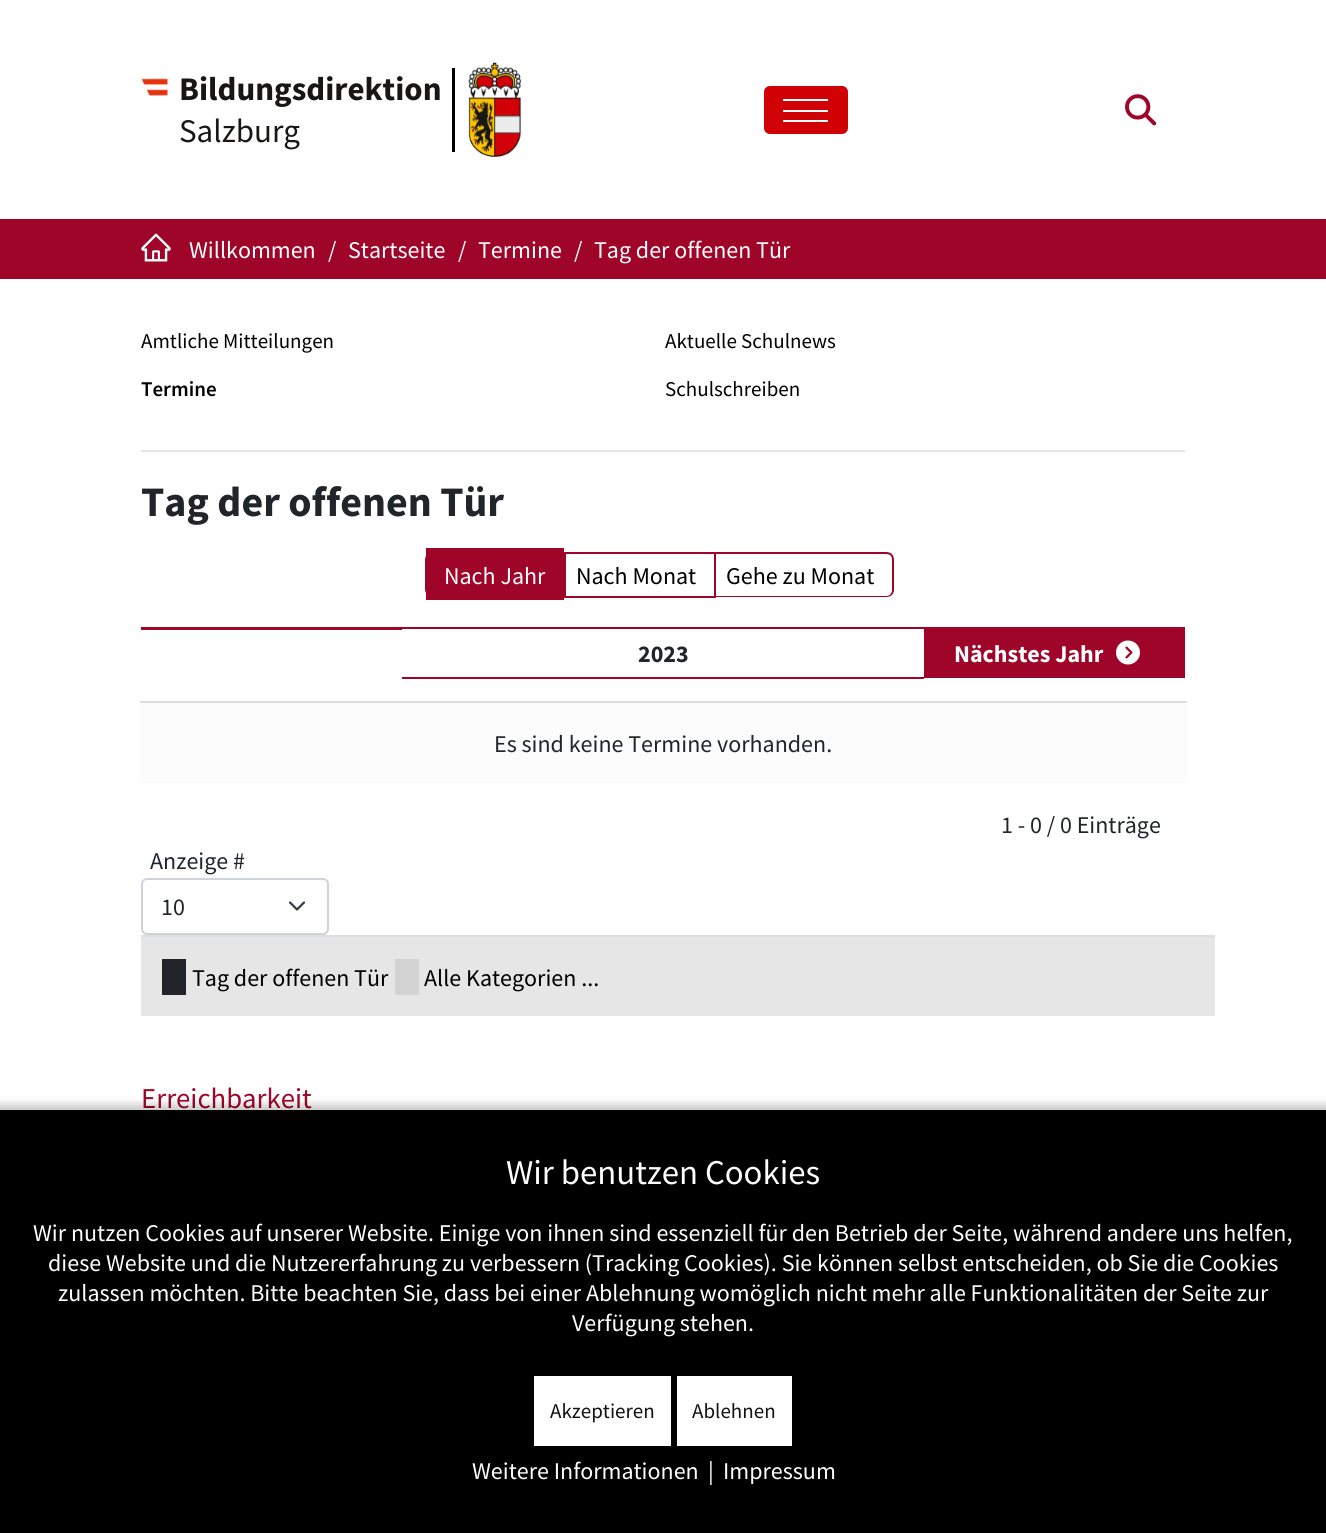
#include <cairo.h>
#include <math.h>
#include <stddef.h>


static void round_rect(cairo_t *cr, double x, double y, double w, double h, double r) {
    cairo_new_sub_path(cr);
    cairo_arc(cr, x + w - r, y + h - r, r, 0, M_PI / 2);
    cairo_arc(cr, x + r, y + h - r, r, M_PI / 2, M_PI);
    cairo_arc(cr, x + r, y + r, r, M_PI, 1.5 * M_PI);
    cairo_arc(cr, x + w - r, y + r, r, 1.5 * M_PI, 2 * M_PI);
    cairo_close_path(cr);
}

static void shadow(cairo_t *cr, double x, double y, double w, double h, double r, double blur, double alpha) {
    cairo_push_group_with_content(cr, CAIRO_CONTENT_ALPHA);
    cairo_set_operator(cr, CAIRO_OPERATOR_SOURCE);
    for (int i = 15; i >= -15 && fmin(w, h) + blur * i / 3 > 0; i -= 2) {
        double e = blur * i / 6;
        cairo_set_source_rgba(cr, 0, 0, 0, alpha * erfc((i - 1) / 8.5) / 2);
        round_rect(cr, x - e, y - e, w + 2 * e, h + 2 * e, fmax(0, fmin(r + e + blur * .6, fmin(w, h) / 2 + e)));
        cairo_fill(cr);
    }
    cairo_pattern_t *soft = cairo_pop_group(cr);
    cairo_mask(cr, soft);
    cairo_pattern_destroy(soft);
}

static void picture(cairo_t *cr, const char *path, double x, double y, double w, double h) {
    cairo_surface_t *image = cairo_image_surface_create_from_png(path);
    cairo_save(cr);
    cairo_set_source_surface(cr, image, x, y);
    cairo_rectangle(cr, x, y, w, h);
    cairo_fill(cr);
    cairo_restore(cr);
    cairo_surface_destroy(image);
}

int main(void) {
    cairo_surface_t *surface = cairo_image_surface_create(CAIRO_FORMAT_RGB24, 1326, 1533);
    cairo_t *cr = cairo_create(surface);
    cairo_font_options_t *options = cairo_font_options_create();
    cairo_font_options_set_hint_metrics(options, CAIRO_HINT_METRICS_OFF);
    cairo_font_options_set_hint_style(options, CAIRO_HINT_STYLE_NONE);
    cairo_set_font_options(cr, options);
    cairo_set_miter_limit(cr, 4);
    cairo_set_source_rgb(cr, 1, 1, 1);
    cairo_paint(cr);
    picture(cr, "img1.png", 141, 78, 27, 18);
    cairo_set_source_rgb(cr, 0, 0, 0);
    cairo_rectangle(cr, 452, 68, 3, 84);
    cairo_fill(cr);
    cairo_select_font_face(cr, "Source Sans Pro", CAIRO_FONT_SLANT_NORMAL, CAIRO_FONT_WEIGHT_BOLD);
    cairo_set_font_size(cr, 33);
    cairo_set_source_rgb(cr, 0.094, 0.09, 0.086);
    cairo_move_to(cr, 179, 100);
    cairo_show_text(cr, "Bildungsdirektion");
    cairo_select_font_face(cr, "Source Sans Pro", CAIRO_FONT_SLANT_NORMAL, CAIRO_FONT_WEIGHT_NORMAL);
    cairo_move_to(cr, 179, 142);
    cairo_show_text(cr, "Salzburg");
    picture(cr, "img2.png", 468, 62, 54, 95);
    cairo_set_source_rgb(cr, 0.82, 0.008, 0.027);
    round_rect(cr, 764, 86, 84, 48, 6);
    cairo_fill(cr);
    cairo_set_source_rgb(cr, 1, 1, 1);
    cairo_rectangle(cr, 783, 110, 45, 2);
    cairo_fill(cr);
    cairo_rectangle(cr, 783, 99, 45, 2);
    cairo_fill(cr);
    cairo_rectangle(cr, 783, 120, 45, 2);
    cairo_fill(cr);
    picture(cr, "img3.png", 1125, 94, 32, 32);
    cairo_set_source_rgb(cr, 0.62, 0.02, 0.161);
    cairo_rectangle(cr, 0, 219, 1326, 60);
    cairo_fill(cr);
    picture(cr, "img4.png", 141, 233, 30, 29);
    cairo_set_font_size(cr, 24);
    cairo_set_source_rgb(cr, 1, 1, 1);
    cairo_move_to(cr, 189, 258);
    cairo_show_text(cr, "Willkommen");
    cairo_move_to(cr, 328, 258);
    cairo_show_text(cr, "/");
    cairo_move_to(cr, 348, 258);
    cairo_show_text(cr, "Startseite");
    cairo_move_to(cr, 458, 258);
    cairo_show_text(cr, "/");
    cairo_move_to(cr, 478, 258);
    cairo_show_text(cr, "Termine");
    cairo_move_to(cr, 574, 258);
    cairo_show_text(cr, "/");
    cairo_move_to(cr, 594, 258);
    cairo_show_text(cr, "Tag der offenen Tür");
    cairo_set_source_rgb(cr, 0.898, 0.898, 0.898);
    cairo_rectangle(cr, 141, 450, 1044, 2);
    cairo_fill(cr);
    cairo_set_font_size(cr, 21);
    cairo_set_source_rgb(cr, 0, 0, 0);
    cairo_move_to(cr, 141, 348);
    cairo_show_text(cr, "Amtliche Mitteilungen");
    cairo_move_to(cr, 665, 348);
    cairo_show_text(cr, "Aktuelle Schulnews");
    cairo_select_font_face(cr, "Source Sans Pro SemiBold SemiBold", CAIRO_FONT_SLANT_NORMAL, CAIRO_FONT_WEIGHT_NORMAL);
    cairo_move_to(cr, 141, 396);
    cairo_show_text(cr, "Termine");
    cairo_select_font_face(cr, "Source Sans Pro", CAIRO_FONT_SLANT_NORMAL, CAIRO_FONT_WEIGHT_NORMAL);
    cairo_move_to(cr, 665, 396);
    cairo_show_text(cr, "Schulschreiben");
    cairo_select_font_face(cr, "Source Sans Pro", CAIRO_FONT_SLANT_NORMAL, CAIRO_FONT_WEIGHT_BOLD);
    cairo_set_font_size(cr, 42);
    cairo_set_source_rgb(cr, 0.129, 0.145, 0.161);
    cairo_move_to(cr, 141, 516);
    cairo_show_text(cr, "Tag der offenen Tür");
    cairo_new_path(cr);
    cairo_move_to(cr, 433, 553);
    cairo_line_to(cr, 565, 553);
    cairo_line_to(cr, 565, 596);
    cairo_line_to(cr, 433, 596);
    cairo_curve_to(cr, 429, 596, 426, 593, 426, 589);
    cairo_line_to(cr, 426, 560);
    cairo_curve_to(cr, 426, 556, 429, 553, 433, 553);
    cairo_close_path(cr);
    cairo_set_source_rgb(cr, 0.62, 0.02, 0.161);
    cairo_stroke(cr);
    cairo_rectangle(cr, 426, 548, 138, 52);
    cairo_fill(cr);
    cairo_select_font_face(cr, "Source Sans Pro", CAIRO_FONT_SLANT_NORMAL, CAIRO_FONT_WEIGHT_NORMAL);
    cairo_set_font_size(cr, 24);
    cairo_set_source_rgb(cr, 1, 1, 1);
    cairo_move_to(cr, 444, 584);
    cairo_show_text(cr, "Nach Jahr");
    cairo_set_source_rgb(cr, 0.62, 0.02, 0.161);
    cairo_rectangle(cr, 558, 552, 158, 2);
    cairo_fill(cr);
    cairo_rectangle(cr, 714, 552, 2, 45);
    cairo_fill(cr);
    cairo_rectangle(cr, 558, 596, 158, 2);
    cairo_fill(cr);
    cairo_set_source_rgb(cr, 0, 0, 0);
    cairo_move_to(cr, 576, 584);
    cairo_show_text(cr, "Nach Monat");
    cairo_set_source_rgb(cr, 0.62, 0.02, 0.161);
    cairo_set_fill_rule(cr, CAIRO_FILL_RULE_EVEN_ODD);
    cairo_new_path(cr);
    cairo_move_to(cr, 708, 552);
    cairo_line_to(cr, 886, 552);
    cairo_curve_to(cr, 891, 552, 894, 555, 894, 560);
    cairo_line_to(cr, 894, 590);
    cairo_curve_to(cr, 894, 594, 891, 597, 886, 597);
    cairo_line_to(cr, 708, 597);
    cairo_close_path(cr);
    cairo_move_to(cr, 708, 554);
    cairo_line_to(cr, 886, 554);
    cairo_curve_to(cr, 890, 554, 892, 556, 892, 560);
    cairo_line_to(cr, 892, 590);
    cairo_curve_to(cr, 892, 593, 890, 596, 886, 596);
    cairo_line_to(cr, 708, 596);
    cairo_close_path(cr);
    cairo_fill(cr);
    cairo_set_source_rgb(cr, 0, 0, 0);
    cairo_move_to(cr, 726, 584);
    cairo_show_text(cr, "Gehe zu Monat");
    cairo_set_source_rgb(cr, 0.62, 0.02, 0.161);
    cairo_rectangle(cr, 141, 627, 261, 3);
    cairo_fill(cr);
    cairo_rectangle(cr, 402, 627, 522, 2);
    cairo_fill(cr);
    cairo_rectangle(cr, 402, 677, 522, 2);
    cairo_fill(cr);
    cairo_select_font_face(cr, "Source Sans Pro", CAIRO_FONT_SLANT_NORMAL, CAIRO_FONT_WEIGHT_BOLD);
    cairo_set_source_rgb(cr, 0.129, 0.145, 0.161);
    cairo_move_to(cr, 638, 662);
    cairo_show_text(cr, "2023");
    cairo_set_source_rgb(cr, 0.62, 0.02, 0.161);
    cairo_rectangle(cr, 924, 627, 261, 51);
    cairo_fill(cr);
    cairo_set_source_rgb(cr, 1, 1, 1);
    cairo_move_to(cr, 954, 662);
    cairo_show_text(cr, "Nächstes Jahr");
    picture(cr, "img5.png", 1116, 640, 24, 25);
    cairo_set_source_rgb(cr, 0.988, 0.988, 0.988);
    cairo_rectangle(cr, 140, 703, 1047, 80);
    cairo_fill(cr);
    cairo_set_source_rgb(cr, 0.867, 0.867, 0.867);
    cairo_rectangle(cr, 140, 701, 1047, 2);
    cairo_fill(cr);
    cairo_select_font_face(cr, "Source Sans Pro", CAIRO_FONT_SLANT_NORMAL, CAIRO_FONT_WEIGHT_NORMAL);
    cairo_set_source_rgb(cr, 0.129, 0.145, 0.161);
    cairo_move_to(cr, 494, 752);
    cairo_show_text(cr, "Es sind keine Termine vorhanden.");
    cairo_move_to(cr, 1001, 833);
    cairo_show_text(cr, "1 - 0 / 0 Einträge");
    cairo_move_to(cr, 150, 869);
    cairo_show_text(cr, "Anzeige #");
    cairo_new_path(cr);
    cairo_move_to(cr, 290, 902.5);
    cairo_line_to(cr, 297, 909.5);
    cairo_line_to(cr, 304, 902.5);
    cairo_set_source_rgb(cr, 0.204, 0.227, 0.251);
    cairo_set_line_width(cr, 2.2);
    cairo_set_line_cap(cr, CAIRO_LINE_CAP_ROUND);
    cairo_set_line_join(cr, CAIRO_LINE_JOIN_ROUND);
    cairo_stroke(cr);
    round_rect(cr, 142, 879, 186, 55, 5);
    cairo_set_source_rgb(cr, 0.808, 0.831, 0.855);
    cairo_set_line_width(cr, 2);
    cairo_set_line_cap(cr, CAIRO_LINE_CAP_BUTT);
    cairo_set_line_join(cr, CAIRO_LINE_JOIN_MITER);
    cairo_stroke(cr);
    cairo_set_source_rgb(cr, 0.129, 0.145, 0.161);
    cairo_move_to(cr, 161, 915);
    cairo_show_text(cr, "10");
    cairo_set_source_rgb(cr, 0.902, 0.902, 0.902);
    cairo_rectangle(cr, 141, 937, 1074, 79);
    cairo_fill(cr);
    cairo_set_source_rgb(cr, 0.867, 0.867, 0.867);
    cairo_rectangle(cr, 141, 935, 1074, 2);
    cairo_fill(cr);
    cairo_set_source_rgb(cr, 0.129, 0.145, 0.161);
    cairo_rectangle(cr, 162, 959, 24, 36);
    cairo_fill(cr);
    cairo_set_source_rgb(cr, 0, 0, 0);
    cairo_move_to(cr, 192, 986);
    cairo_show_text(cr, "Tag der offenen Tür");
    cairo_set_source_rgb(cr, 0.827, 0.827, 0.827);
    cairo_rectangle(cr, 395, 959, 24, 36);
    cairo_fill(cr);
    cairo_set_source_rgb(cr, 0, 0, 0);
    cairo_move_to(cr, 424, 986);
    cairo_show_text(cr, "Alle Kategorien ...");
    cairo_set_font_size(cr, 28.75);
    cairo_set_source_rgb(cr, 0.62, 0.02, 0.161);
    cairo_move_to(cr, 141, 1108);
    cairo_show_text(cr, "Erreichbarkeit");
    cairo_set_source_rgb(cr, 0, 0, 0);
    shadow(cr, -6, 1104, 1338, 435, 0, 4, 0.21);
    cairo_set_source_rgb(cr, 0, 0, 0);
    cairo_rectangle(cr, 0, 1110, 1326, 423);
    cairo_fill(cr);
    cairo_set_font_size(cr, 34.75);
    cairo_set_source_rgb(cr, 1, 1, 1);
    cairo_move_to(cr, 506, 1184);
    cairo_show_text(cr, "Wir benutzen Cookies");
    cairo_set_font_size(cr, 24);
    cairo_move_to(cr, 33, 1241);
    cairo_show_text(cr, "Wir nutzen Cookies auf unserer Website. Einige von ihnen sind essenziell für den Betrieb der Seite, während andere uns helfen,");
    cairo_move_to(cr, 48, 1271);
    cairo_show_text(cr, "diese Website und die Nutzererfahrung zu verbessern (Tracking Cookies). Sie können selbst entscheiden, ob Sie die Cookies");
    cairo_move_to(cr, 58, 1301);
    cairo_show_text(cr, "zulassen möchten. Bitte beachten Sie, dass bei einer Ablehnung womöglich nicht mehr alle Funktionalitäten der Seite zur");
    cairo_move_to(cr, 572, 1331);
    cairo_show_text(cr, "Verfügung stehen.");
    cairo_rectangle(cr, 534, 1376, 137, 70);
    cairo_fill(cr);
    cairo_set_font_size(cr, 21);
    cairo_set_source_rgb(cr, 0.067, 0.067, 0.067);
    cairo_move_to(cr, 550, 1418);
    cairo_show_text(cr, "Akzeptieren");
    cairo_set_source_rgb(cr, 1, 1, 1);
    cairo_rectangle(cr, 677, 1376, 115, 70);
    cairo_fill(cr);
    cairo_set_source_rgb(cr, 0.067, 0.067, 0.067);
    cairo_move_to(cr, 692, 1418);
    cairo_show_text(cr, "Ablehnen");
    cairo_set_font_size(cr, 24);
    cairo_set_source_rgb(cr, 1, 1, 1);
    cairo_move_to(cr, 472, 1479);
    cairo_show_text(cr, "Weitere Informationen");
    cairo_move_to(cr, 708, 1479);
    cairo_show_text(cr, "|");
    cairo_move_to(cr, 723, 1479);
    cairo_show_text(cr, "Impressum");
    cairo_surface_write_to_png(surface, "page.png");
    cairo_font_options_destroy(options);
    cairo_destroy(cr);
    cairo_surface_destroy(surface);
    return 0;
}
